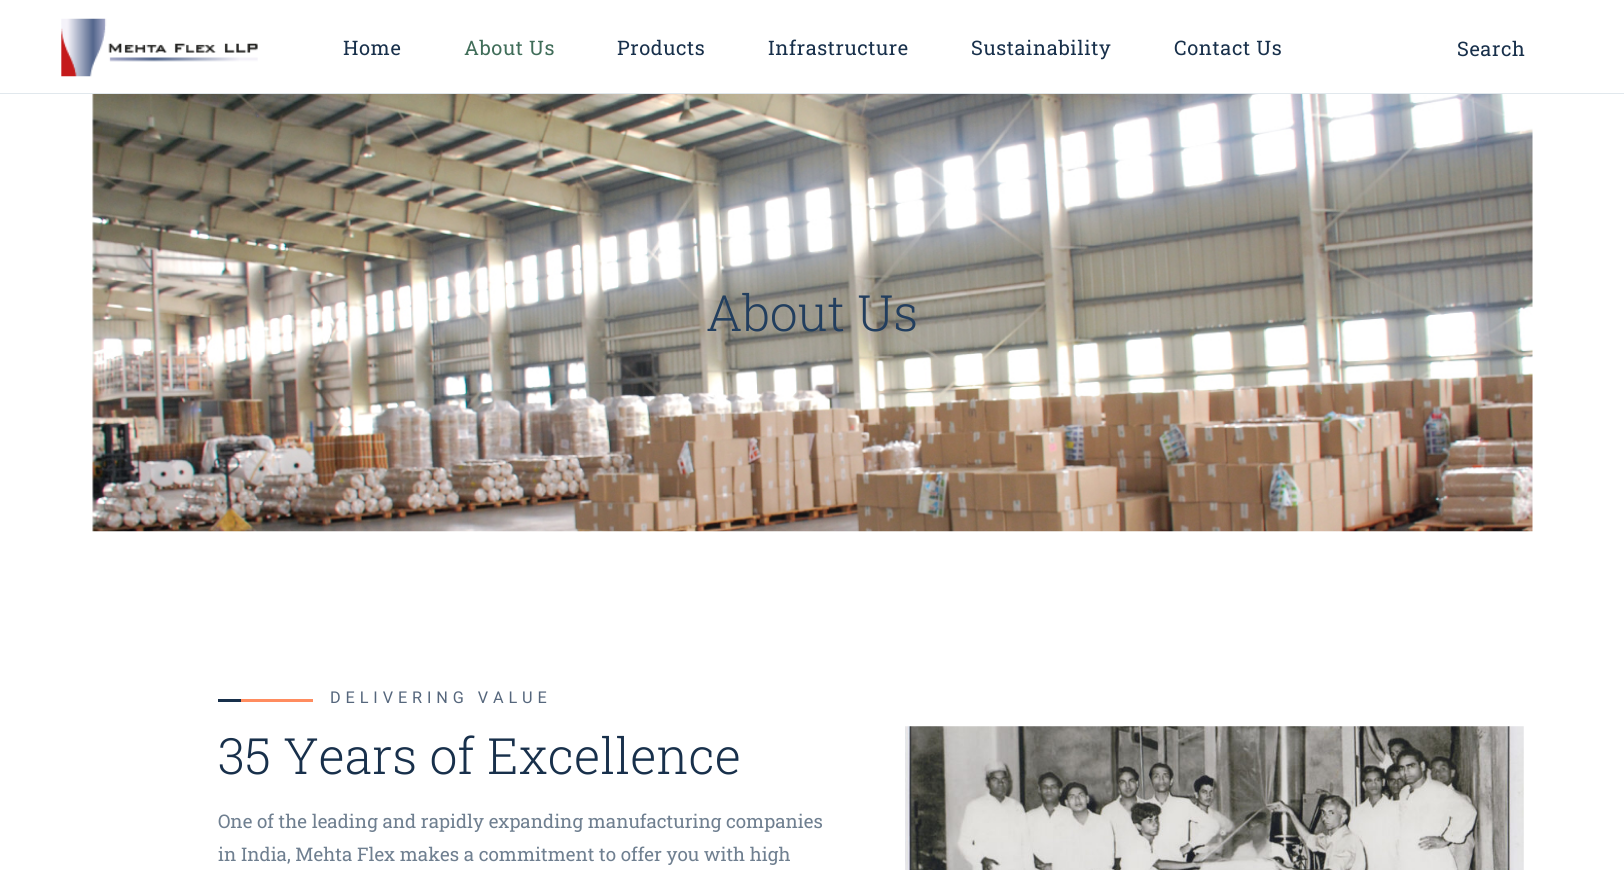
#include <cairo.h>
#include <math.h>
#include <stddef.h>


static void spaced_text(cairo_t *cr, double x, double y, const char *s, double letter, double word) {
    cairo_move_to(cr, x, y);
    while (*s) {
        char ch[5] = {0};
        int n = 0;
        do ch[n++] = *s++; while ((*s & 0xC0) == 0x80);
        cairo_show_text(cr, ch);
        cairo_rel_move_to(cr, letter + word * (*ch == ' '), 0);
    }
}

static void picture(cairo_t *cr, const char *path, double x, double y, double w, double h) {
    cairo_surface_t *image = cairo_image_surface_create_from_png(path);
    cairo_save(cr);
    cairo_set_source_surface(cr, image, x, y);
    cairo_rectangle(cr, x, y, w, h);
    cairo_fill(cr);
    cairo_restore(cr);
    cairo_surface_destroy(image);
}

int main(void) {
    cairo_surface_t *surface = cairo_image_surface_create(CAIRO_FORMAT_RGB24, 1624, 870);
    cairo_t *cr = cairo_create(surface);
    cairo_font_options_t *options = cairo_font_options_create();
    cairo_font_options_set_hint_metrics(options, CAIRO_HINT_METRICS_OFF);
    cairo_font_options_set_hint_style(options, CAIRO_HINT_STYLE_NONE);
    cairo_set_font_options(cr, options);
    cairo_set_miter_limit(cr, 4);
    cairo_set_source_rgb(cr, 1, 1, 1);
    cairo_paint(cr);
    picture(cr, "img1.png", 61, 18, 197, 59);
    cairo_select_font_face(cr, "Roboto Slab", CAIRO_FONT_SLANT_NORMAL, CAIRO_FONT_WEIGHT_NORMAL);
    cairo_set_font_size(cr, 20);
    cairo_set_source_rgb(cr, 0.094, 0.188, 0.294);
    spaced_text(cr, 343, 55, "Home", 0.6, 0);
    cairo_set_source_rgb(cr, 0.251, 0.427, 0.349);
    spaced_text(cr, 464, 55, "About Us", 0.6, 0);
    cairo_set_source_rgb(cr, 0.094, 0.188, 0.294);
    spaced_text(cr, 617, 55, "Products", 0.6, 0);
    spaced_text(cr, 768, 55, "Infrastructure", 0.6, 0);
    spaced_text(cr, 971, 55, "Sustainability", 0.6, 0);
    spaced_text(cr, 1174, 55, "Contact Us", 0.6, 0);
    spaced_text(cr, 1457, 56, "Search", 0.6, 0);
    cairo_set_source_rgb(cr, 0.882, 0.91, 0.929);
    cairo_rectangle(cr, 0, 93, 1624, 1);
    cairo_fill(cr);
    picture(cr, "img2.png", 92, 94, 1441, 438);
    cairo_select_font_face(cr, "Roboto Slab Light", CAIRO_FONT_SLANT_NORMAL, CAIRO_FONT_WEIGHT_NORMAL);
    cairo_set_font_size(cr, 50);
    cairo_set_source_rgb(cr, 0.133, 0.243, 0.369);
    cairo_move_to(cr, 706, 331);
    cairo_show_text(cr, "About Us");
    cairo_set_source_rgb(cr, 0.094, 0.188, 0.294);
    cairo_rectangle(cr, 218, 699, 23, 3);
    cairo_fill(cr);
    cairo_set_source_rgb(cr, 1, 0.549, 0.373);
    cairo_rectangle(cr, 241, 699, 72, 3);
    cairo_fill(cr);
    cairo_select_font_face(cr, "Roboto", CAIRO_FONT_SLANT_NORMAL, CAIRO_FONT_WEIGHT_NORMAL);
    cairo_set_font_size(cr, 16.25);
    cairo_set_source_rgb(cr, 0.333, 0.4, 0.486);
    spaced_text(cr, 330, 703, "DELIVERING VALUE", 4.9, 0);
    cairo_select_font_face(cr, "Roboto Slab Light", CAIRO_FONT_SLANT_NORMAL, CAIRO_FONT_WEIGHT_NORMAL);
    cairo_set_font_size(cr, 50);
    cairo_set_source_rgb(cr, 0.094, 0.188, 0.294);
    cairo_move_to(cr, 218, 774);
    cairo_show_text(cr, "35 Years of Excellence");
    cairo_select_font_face(cr, "Roboto Slab", CAIRO_FONT_SLANT_NORMAL, CAIRO_FONT_WEIGHT_NORMAL);
    cairo_set_font_size(cr, 18.75);
    cairo_set_source_rgb(cr, 0.435, 0.498, 0.565);
    cairo_move_to(cr, 218, 828);
    cairo_show_text(cr, "One of the leading and rapidly expanding manufacturing companies");
    cairo_move_to(cr, 218, 861);
    cairo_show_text(cr, "in India, Mehta Flex makes a commitment to offer you with high");
    picture(cr, "img3.png", 905, 726, 619, 144);
    cairo_surface_write_to_png(surface, "page.png");
    cairo_font_options_destroy(options);
    cairo_destroy(cr);
    cairo_surface_destroy(surface);
    return 0;
}
